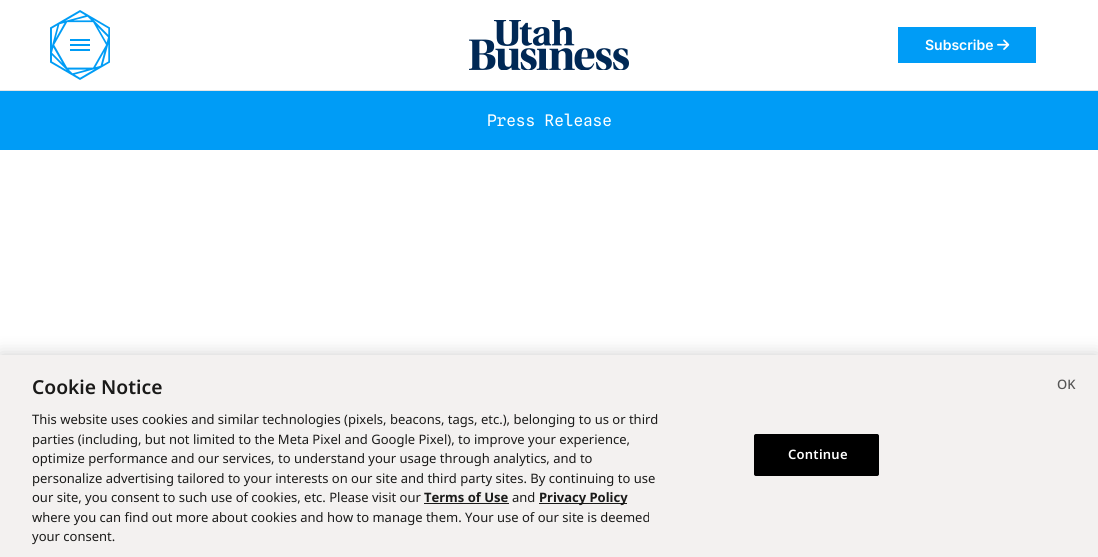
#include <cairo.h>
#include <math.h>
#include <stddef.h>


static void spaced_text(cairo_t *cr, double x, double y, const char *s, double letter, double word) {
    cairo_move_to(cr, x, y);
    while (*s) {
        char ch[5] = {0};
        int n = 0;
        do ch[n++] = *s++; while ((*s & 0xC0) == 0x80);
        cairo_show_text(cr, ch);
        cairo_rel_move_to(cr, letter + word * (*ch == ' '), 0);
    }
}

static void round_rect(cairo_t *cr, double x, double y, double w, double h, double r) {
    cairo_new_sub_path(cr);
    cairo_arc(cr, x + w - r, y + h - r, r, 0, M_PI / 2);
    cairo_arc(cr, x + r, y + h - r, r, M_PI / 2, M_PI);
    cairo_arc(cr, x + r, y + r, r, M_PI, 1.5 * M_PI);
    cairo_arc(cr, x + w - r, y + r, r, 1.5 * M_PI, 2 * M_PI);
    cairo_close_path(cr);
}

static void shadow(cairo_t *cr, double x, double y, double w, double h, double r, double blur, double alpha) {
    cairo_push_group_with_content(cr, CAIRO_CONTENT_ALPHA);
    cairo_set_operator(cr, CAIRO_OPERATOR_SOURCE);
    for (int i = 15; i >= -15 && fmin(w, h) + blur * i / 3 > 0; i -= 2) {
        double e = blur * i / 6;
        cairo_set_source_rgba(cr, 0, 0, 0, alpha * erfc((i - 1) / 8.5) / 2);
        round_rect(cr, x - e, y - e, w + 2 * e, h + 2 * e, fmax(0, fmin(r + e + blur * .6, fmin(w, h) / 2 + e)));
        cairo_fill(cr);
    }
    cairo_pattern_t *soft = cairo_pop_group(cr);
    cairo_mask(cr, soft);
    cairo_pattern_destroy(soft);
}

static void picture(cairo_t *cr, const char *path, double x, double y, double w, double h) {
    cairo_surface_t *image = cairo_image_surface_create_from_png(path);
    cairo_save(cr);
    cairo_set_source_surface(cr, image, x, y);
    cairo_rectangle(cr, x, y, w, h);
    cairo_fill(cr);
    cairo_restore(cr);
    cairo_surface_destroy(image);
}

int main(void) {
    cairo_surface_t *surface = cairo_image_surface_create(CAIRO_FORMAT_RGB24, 1098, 557);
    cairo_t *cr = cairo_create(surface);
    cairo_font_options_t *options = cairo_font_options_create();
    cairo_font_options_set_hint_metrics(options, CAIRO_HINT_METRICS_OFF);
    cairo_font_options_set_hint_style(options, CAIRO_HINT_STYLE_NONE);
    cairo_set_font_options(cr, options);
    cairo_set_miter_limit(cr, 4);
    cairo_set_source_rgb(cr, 1, 1, 1);
    cairo_paint(cr);
    cairo_set_source_rgb(cr, 0.898, 0.898, 0.898);
    cairo_rectangle(cr, 0, 90, 1098, 1);
    cairo_fill(cr);
    picture(cr, "img1.png", 50, 10, 60, 70);
    picture(cr, "img2.png", 469, 20, 160, 50);
    cairo_set_source_rgb(cr, 0, 0.612, 0.961);
    cairo_rectangle(cr, 898, 27, 138, 36);
    cairo_fill(cr);
    cairo_select_font_face(cr, "Inter SemiBold", CAIRO_FONT_SLANT_NORMAL, CAIRO_FONT_WEIGHT_NORMAL);
    cairo_set_font_size(cr, 14);
    cairo_set_source_rgb(cr, 1, 1, 1);
    cairo_move_to(cr, 925, 50);
    cairo_show_text(cr, "Subscribe");
    picture(cr, "img3.png", 997, 39, 13, 11);
    cairo_set_source_rgb(cr, 0, 0.612, 0.961);
    cairo_rectangle(cr, 0, 91, 1098, 59);
    cairo_fill(cr);
    cairo_select_font_face(cr, "Spline Sans Mono", CAIRO_FONT_SLANT_NORMAL, CAIRO_FONT_WEIGHT_NORMAL);
    cairo_set_font_size(cr, 16);
    cairo_set_source_rgb(cr, 1, 1, 1);
    cairo_move_to(cr, 487, 126);
    cairo_show_text(cr, "Press Release");
    cairo_set_source_rgb(cr, 0, 0, 0);
    shadow(cr, 0, 355, 1098, 202, 0, 9, 0.2);
    cairo_set_source_rgb(cr, 0.953, 0.945, 0.941);
    cairo_rectangle(cr, 0, 355, 1098, 202);
    cairo_fill(cr);
    cairo_select_font_face(cr, "Noto Sans SemiBold", CAIRO_FONT_SLANT_NORMAL, CAIRO_FONT_WEIGHT_NORMAL);
    cairo_set_font_size(cr, 19.25);
    cairo_set_source_rgb(cr, 0.102, 0.102, 0.098);
    cairo_move_to(cr, 32, 394);
    cairo_show_text(cr, "Cookie Notice");
    cairo_select_font_face(cr, "Noto Sans", CAIRO_FONT_SLANT_NORMAL, CAIRO_FONT_WEIGHT_NORMAL);
    cairo_set_font_size(cr, 13);
    cairo_move_to(cr, 32, 424);
    cairo_show_text(cr, "This website uses cookies and similar technologies (pixels, beacons, tags, etc.), belonging to us or third");
    cairo_move_to(cr, 32, 444);
    cairo_show_text(cr, "parties (including, but not limited to the Meta Pixel and Google Pixel), to improve your experience,");
    cairo_move_to(cr, 32, 463);
    cairo_show_text(cr, "optimize performance and our services, to understand your usage through analytics, and to");
    cairo_move_to(cr, 32, 483);
    cairo_show_text(cr, "personalize advertising tailored to your interests on our site and third party sites. By continuing to use");
    cairo_move_to(cr, 32, 502);
    cairo_show_text(cr, "our site, you consent to such use of cookies, etc. Please visit our");
    cairo_select_font_face(cr, "Noto Sans", CAIRO_FONT_SLANT_NORMAL, CAIRO_FONT_WEIGHT_BOLD);
    cairo_move_to(cr, 424, 502);
    cairo_show_text(cr, "Terms of Use");
    cairo_rectangle(cr, 424, 503, 85, 1);
    cairo_fill(cr);
    cairo_select_font_face(cr, "Noto Sans", CAIRO_FONT_SLANT_NORMAL, CAIRO_FONT_WEIGHT_NORMAL);
    cairo_move_to(cr, 512, 502);
    cairo_show_text(cr, "and");
    cairo_rectangle(cr, 539, 503, 88, 1);
    cairo_fill(cr);
    cairo_select_font_face(cr, "Noto Sans", CAIRO_FONT_SLANT_NORMAL, CAIRO_FONT_WEIGHT_BOLD);
    cairo_move_to(cr, 539, 502);
    cairo_show_text(cr, "Privacy Policy");
    cairo_select_font_face(cr, "Noto Sans", CAIRO_FONT_SLANT_NORMAL, CAIRO_FONT_WEIGHT_NORMAL);
    cairo_move_to(cr, 32, 522);
    cairo_show_text(cr, "where you can find out more about cookies and how to manage them. Your use of our site is deemed");
    cairo_move_to(cr, 32, 541);
    cairo_show_text(cr, "your consent.");
    cairo_set_source_rgb(cr, 0, 0, 0);
    round_rect(cr, 754.5, 434.5, 124, 41, 1.5);
    cairo_fill_preserve(cr);
    cairo_set_line_width(cr, 1);
    cairo_stroke(cr);
    cairo_select_font_face(cr, "Noto Sans SemiBold", CAIRO_FONT_SLANT_NORMAL, CAIRO_FONT_WEIGHT_NORMAL);
    cairo_set_source_rgb(cr, 1, 1, 1);
    spaced_text(cr, 788, 459, "Continue", 0.25, 0);
    cairo_select_font_face(cr, "Noto Sans Medium", CAIRO_FONT_SLANT_NORMAL, CAIRO_FONT_WEIGHT_NORMAL);
    cairo_set_source_rgb(cr, 0.333, 0.333, 0.333);
    cairo_move_to(cr, 1057, 389);
    cairo_show_text(cr, "OK");
    cairo_surface_write_to_png(surface, "page.png");
    cairo_font_options_destroy(options);
    cairo_destroy(cr);
    cairo_surface_destroy(surface);
    return 0;
}
